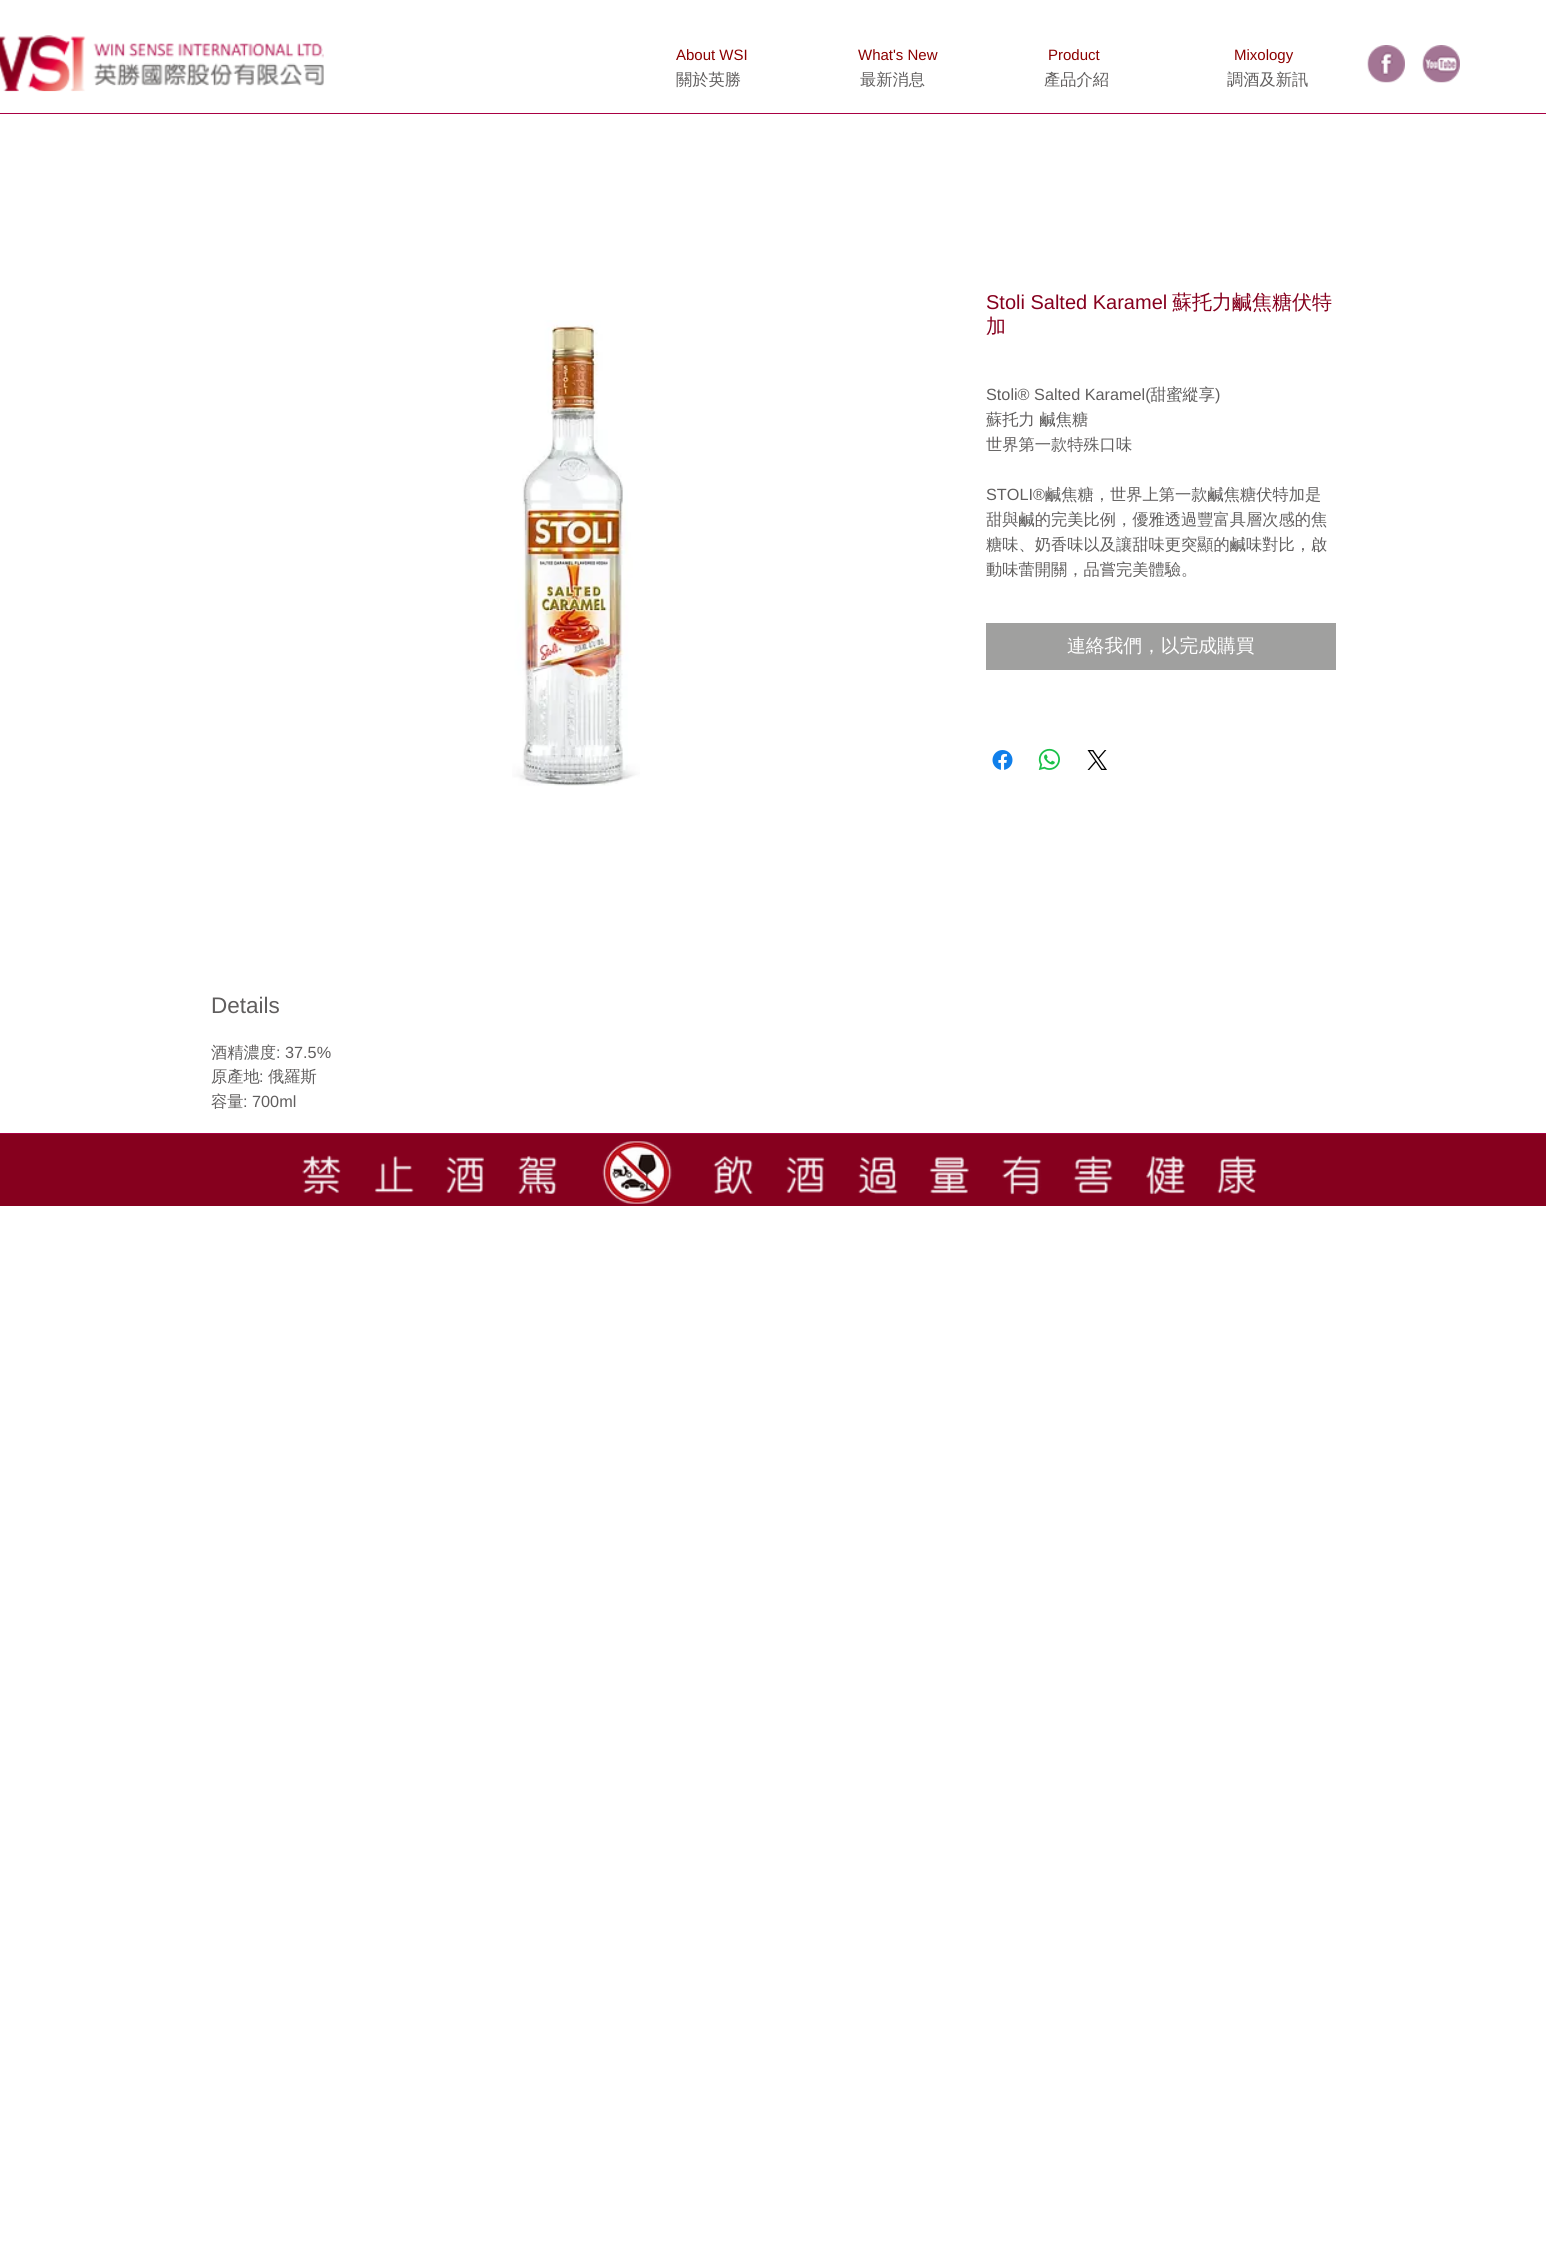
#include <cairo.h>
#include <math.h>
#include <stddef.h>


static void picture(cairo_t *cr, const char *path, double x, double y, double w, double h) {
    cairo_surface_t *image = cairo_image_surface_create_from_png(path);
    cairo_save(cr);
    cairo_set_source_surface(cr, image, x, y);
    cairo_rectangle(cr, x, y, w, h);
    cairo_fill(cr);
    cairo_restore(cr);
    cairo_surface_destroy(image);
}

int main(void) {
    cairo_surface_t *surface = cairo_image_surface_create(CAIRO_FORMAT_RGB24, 1546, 2254);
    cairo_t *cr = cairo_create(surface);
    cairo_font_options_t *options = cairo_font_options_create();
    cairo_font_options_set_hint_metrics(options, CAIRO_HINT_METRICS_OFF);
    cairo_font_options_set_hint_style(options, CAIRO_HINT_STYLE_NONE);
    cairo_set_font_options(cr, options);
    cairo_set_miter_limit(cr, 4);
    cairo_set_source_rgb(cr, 1, 1, 1);
    cairo_paint(cr);
    picture(cr, "img1.png", 0, 35, 324, 57);
    cairo_select_font_face(cr, "Liberation Sans", CAIRO_FONT_SLANT_NORMAL, CAIRO_FONT_WEIGHT_NORMAL);
    cairo_set_font_size(cr, 15);
    cairo_set_source_rgb(cr, 0.545, 0, 0);
    cairo_move_to(cr, 676, 60);
    cairo_show_text(cr, "About WSI");
    cairo_move_to(cr, 858, 60);
    cairo_show_text(cr, "What's New");
    cairo_move_to(cr, 1048, 60);
    cairo_show_text(cr, "Product");
    cairo_move_to(cr, 1234, 60);
    cairo_show_text(cr, "Mixology");
    picture(cr, "img2.png", 1367, 45, 38, 38);
    picture(cr, "img3.png", 1422, 45, 38, 38);
    cairo_select_font_face(cr, "WenQuanYi Zen Hei Medium", CAIRO_FONT_SLANT_NORMAL, CAIRO_FONT_WEIGHT_NORMAL);
    cairo_set_font_size(cr, 16.25);
    cairo_set_source_rgb(cr, 0.376, 0.369, 0.369);
    cairo_move_to(cr, 676, 85);
    cairo_show_text(cr, "關於英勝");
    cairo_move_to(cr, 860, 85);
    cairo_show_text(cr, "最新消息");
    cairo_move_to(cr, 1044, 85);
    cairo_show_text(cr, "產品介紹");
    cairo_move_to(cr, 1227, 85);
    cairo_show_text(cr, "調酒及新訊");
    cairo_set_source_rgb(cr, 0.663, 0, 0.263);
    cairo_rectangle(cr, 0, 113, 1546, 1);
    cairo_fill(cr);
    picture(cr, "img4.png", 512, 320, 128, 466);
    cairo_select_font_face(cr, "Liberation Sans", CAIRO_FONT_SLANT_NORMAL, CAIRO_FONT_WEIGHT_NORMAL);
    cairo_set_font_size(cr, 20);
    cairo_set_source_rgb(cr, 0.525, 0, 0.118);
    cairo_move_to(cr, 986, 309);
    cairo_show_text(cr, "Stoli Salted Karamel");
    cairo_select_font_face(cr, "WenQuanYi Zen Hei Medium", CAIRO_FONT_SLANT_NORMAL, CAIRO_FONT_WEIGHT_NORMAL);
    cairo_move_to(cr, 1172, 309);
    cairo_show_text(cr, "蘇托力鹹焦糖伏特");
    cairo_move_to(cr, 986, 333);
    cairo_show_text(cr, "加");
    cairo_select_font_face(cr, "Liberation Sans", CAIRO_FONT_SLANT_NORMAL, CAIRO_FONT_WEIGHT_NORMAL);
    cairo_set_font_size(cr, 16.25);
    cairo_set_source_rgb(cr, 0.376, 0.369, 0.369);
    cairo_move_to(cr, 986, 400);
    cairo_show_text(cr, "Stoli® Salted Karamel(");
    cairo_select_font_face(cr, "WenQuanYi Zen Hei Medium", CAIRO_FONT_SLANT_NORMAL, CAIRO_FONT_WEIGHT_NORMAL);
    cairo_move_to(cr, 1150, 400);
    cairo_show_text(cr, "甜蜜縱享");
    cairo_select_font_face(cr, "Liberation Sans", CAIRO_FONT_SLANT_NORMAL, CAIRO_FONT_WEIGHT_NORMAL);
    cairo_move_to(cr, 1215, 400);
    cairo_show_text(cr, ")");
    cairo_select_font_face(cr, "WenQuanYi Zen Hei Medium", CAIRO_FONT_SLANT_NORMAL, CAIRO_FONT_WEIGHT_NORMAL);
    cairo_move_to(cr, 986, 425);
    cairo_show_text(cr, "蘇托力 鹹焦糖");
    cairo_move_to(cr, 986, 450);
    cairo_show_text(cr, "世界第一款特殊口味");
    cairo_select_font_face(cr, "Liberation Sans", CAIRO_FONT_SLANT_NORMAL, CAIRO_FONT_WEIGHT_NORMAL);
    cairo_move_to(cr, 986, 500);
    cairo_show_text(cr, "STOLI®");
    cairo_select_font_face(cr, "WenQuanYi Zen Hei Medium", CAIRO_FONT_SLANT_NORMAL, CAIRO_FONT_WEIGHT_NORMAL);
    cairo_move_to(cr, 1045, 500);
    cairo_show_text(cr, "鹹焦糖，世界上第一款鹹焦糖伏特加是");
    cairo_move_to(cr, 986, 525);
    cairo_show_text(cr, "甜與鹹的完美比例，優雅透過豐富具層次感的焦");
    cairo_move_to(cr, 986, 550);
    cairo_show_text(cr, "糖味、奶香味以及讓甜味更突顯的鹹味對比，啟");
    cairo_move_to(cr, 986, 575);
    cairo_show_text(cr, "動味蕾開關，品嘗完美體驗。");
    cairo_set_source_rgb(cr, 0.627, 0.627, 0.624);
    cairo_rectangle(cr, 986, 623, 350, 47);
    cairo_fill(cr);
    cairo_set_font_size(cr, 18.75);
    cairo_set_source_rgb(cr, 1, 1, 1);
    cairo_move_to(cr, 1067, 652);
    cairo_show_text(cr, "連絡我們，以完成購買");
    picture(cr, "img5.png", 992, 750, 21, 20);
    picture(cr, "img6.png", 1038, 748, 22, 22);
    picture(cr, "img7.png", 1087, 750, 20, 20);
    cairo_select_font_face(cr, "Liberation Sans", CAIRO_FONT_SLANT_NORMAL, CAIRO_FONT_WEIGHT_NORMAL);
    cairo_set_font_size(cr, 22.5);
    cairo_set_source_rgb(cr, 0.376, 0.369, 0.369);
    cairo_move_to(cr, 211, 1013);
    cairo_show_text(cr, "Details");
    cairo_select_font_face(cr, "WenQuanYi Zen Hei Medium", CAIRO_FONT_SLANT_NORMAL, CAIRO_FONT_WEIGHT_NORMAL);
    cairo_set_font_size(cr, 16.25);
    cairo_move_to(cr, 211, 1058);
    cairo_show_text(cr, "酒精濃度");
    cairo_select_font_face(cr, "Liberation Sans", CAIRO_FONT_SLANT_NORMAL, CAIRO_FONT_WEIGHT_NORMAL);
    cairo_move_to(cr, 276, 1058);
    cairo_show_text(cr, ": 37.5%");
    cairo_select_font_face(cr, "WenQuanYi Zen Hei Medium", CAIRO_FONT_SLANT_NORMAL, CAIRO_FONT_WEIGHT_NORMAL);
    cairo_move_to(cr, 211, 1082);
    cairo_show_text(cr, "原產地");
    cairo_select_font_face(cr, "Liberation Sans", CAIRO_FONT_SLANT_NORMAL, CAIRO_FONT_WEIGHT_NORMAL);
    cairo_move_to(cr, 259, 1082);
    cairo_show_text(cr, ":");
    cairo_select_font_face(cr, "WenQuanYi Zen Hei Medium", CAIRO_FONT_SLANT_NORMAL, CAIRO_FONT_WEIGHT_NORMAL);
    cairo_move_to(cr, 268, 1082);
    cairo_show_text(cr, "俄羅斯");
    cairo_move_to(cr, 211, 1107);
    cairo_show_text(cr, "容量");
    cairo_select_font_face(cr, "Liberation Sans", CAIRO_FONT_SLANT_NORMAL, CAIRO_FONT_WEIGHT_NORMAL);
    cairo_move_to(cr, 243, 1107);
    cairo_show_text(cr, ": 700ml");
    cairo_set_source_rgb(cr, 0.525, 0, 0.118);
    cairo_rectangle(cr, 0, 1134, 1546, 72);
    cairo_fill(cr);
    cairo_set_source_rgb(cr, 0.663, 0, 0.263);
    cairo_rectangle(cr, 0, 1133, 1546, 1);
    cairo_fill(cr);
    picture(cr, "img8.png", 302, 1141, 955, 63);
    cairo_surface_write_to_png(surface, "page.png");
    cairo_font_options_destroy(options);
    cairo_destroy(cr);
    cairo_surface_destroy(surface);
    return 0;
}
